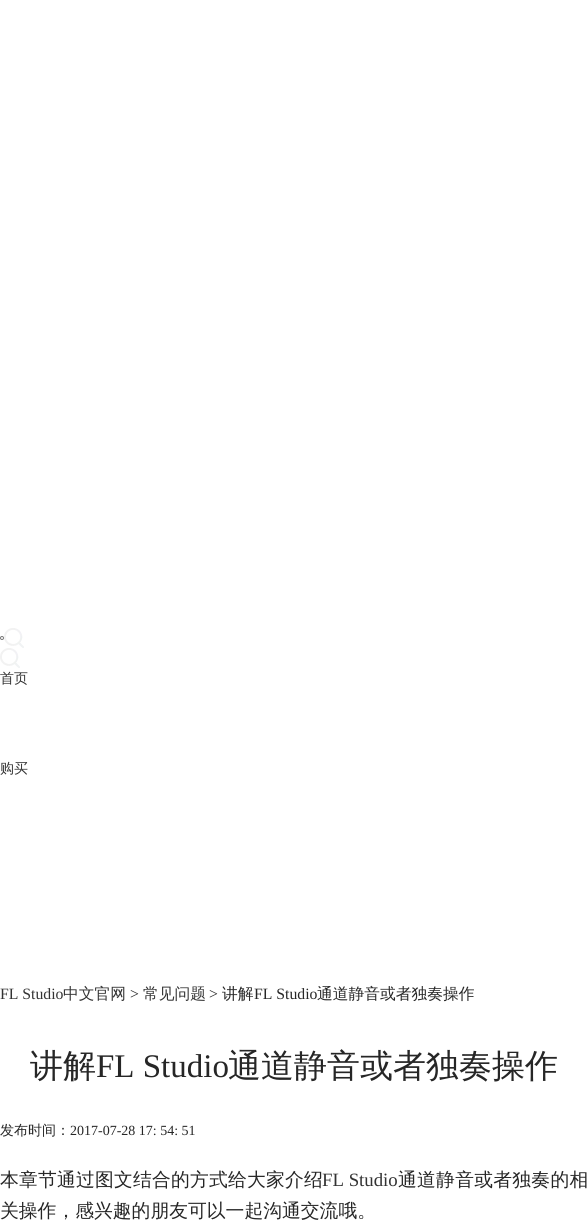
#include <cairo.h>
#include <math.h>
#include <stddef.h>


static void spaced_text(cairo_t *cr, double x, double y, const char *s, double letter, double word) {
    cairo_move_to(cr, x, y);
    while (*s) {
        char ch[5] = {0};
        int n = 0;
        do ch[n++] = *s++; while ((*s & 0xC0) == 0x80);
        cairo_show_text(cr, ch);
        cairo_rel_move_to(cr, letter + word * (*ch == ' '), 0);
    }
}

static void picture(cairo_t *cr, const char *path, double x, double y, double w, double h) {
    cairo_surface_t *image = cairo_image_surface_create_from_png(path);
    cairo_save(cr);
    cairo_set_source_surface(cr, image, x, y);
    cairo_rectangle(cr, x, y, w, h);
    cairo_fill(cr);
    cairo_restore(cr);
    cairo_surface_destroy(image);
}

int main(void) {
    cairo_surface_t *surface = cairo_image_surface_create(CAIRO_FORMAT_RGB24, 588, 1232);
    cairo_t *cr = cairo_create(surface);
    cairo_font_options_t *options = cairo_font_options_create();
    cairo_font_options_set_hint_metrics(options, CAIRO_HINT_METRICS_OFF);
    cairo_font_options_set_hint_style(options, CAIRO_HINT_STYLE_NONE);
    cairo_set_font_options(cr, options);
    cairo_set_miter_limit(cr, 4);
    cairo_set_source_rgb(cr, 1, 1, 1);
    cairo_paint(cr);
    cairo_arc(cr, 2, 638, 1.5, 0, 2 * M_PI);
    cairo_set_source_rgb(cr, 0.463, 0.463, 0.463);
    cairo_set_line_width(cr, 1);
    cairo_stroke(cr);
    picture(cr, "img1.png", 4, 628, 20, 20);
    picture(cr, "img1.png", 0, 648, 20, 20);
    cairo_select_font_face(cr, "WenQuanYi Zen Hei Medium", CAIRO_FONT_SLANT_NORMAL, CAIRO_FONT_WEIGHT_NORMAL);
    cairo_set_font_size(cr, 14);
    cairo_set_source_rgb(cr, 0.2, 0.2, 0.2);
    cairo_move_to(cr, 0, 683);
    cairo_show_text(cr, "首页");
    cairo_move_to(cr, 0, 773);
    cairo_show_text(cr, "购买");
    cairo_select_font_face(cr, "Liberation Serif", CAIRO_FONT_SLANT_NORMAL, CAIRO_FONT_WEIGHT_NORMAL);
    cairo_set_font_size(cr, 15.75);
    cairo_move_to(cr, 0, 999);
    cairo_show_text(cr, "FL Studio");
    cairo_select_font_face(cr, "WenQuanYi Zen Hei Medium", CAIRO_FONT_SLANT_NORMAL, CAIRO_FONT_WEIGHT_NORMAL);
    cairo_move_to(cr, 63, 999);
    cairo_show_text(cr, "中文官网");
    cairo_select_font_face(cr, "Liberation Serif", CAIRO_FONT_SLANT_NORMAL, CAIRO_FONT_WEIGHT_NORMAL);
    cairo_set_source_rgb(cr, 0.149, 0.149, 0.149);
    cairo_move_to(cr, 130, 999);
    cairo_show_text(cr, ">");
    cairo_select_font_face(cr, "WenQuanYi Zen Hei Medium", CAIRO_FONT_SLANT_NORMAL, CAIRO_FONT_WEIGHT_NORMAL);
    cairo_set_source_rgb(cr, 0.2, 0.2, 0.2);
    cairo_move_to(cr, 143, 999);
    cairo_show_text(cr, "常见问题");
    cairo_select_font_face(cr, "Liberation Serif", CAIRO_FONT_SLANT_NORMAL, CAIRO_FONT_WEIGHT_NORMAL);
    cairo_set_source_rgb(cr, 0.149, 0.149, 0.149);
    cairo_move_to(cr, 209, 999);
    cairo_show_text(cr, ">");
    cairo_select_font_face(cr, "WenQuanYi Zen Hei Medium", CAIRO_FONT_SLANT_NORMAL, CAIRO_FONT_WEIGHT_NORMAL);
    cairo_move_to(cr, 222, 999);
    cairo_show_text(cr, "讲解");
    cairo_select_font_face(cr, "Liberation Serif", CAIRO_FONT_SLANT_NORMAL, CAIRO_FONT_WEIGHT_NORMAL);
    cairo_move_to(cr, 254, 999);
    cairo_show_text(cr, "FL Studio");
    cairo_select_font_face(cr, "WenQuanYi Zen Hei Medium", CAIRO_FONT_SLANT_NORMAL, CAIRO_FONT_WEIGHT_NORMAL);
    cairo_move_to(cr, 317, 999);
    cairo_show_text(cr, "通道静音或者独奏操作");
    cairo_set_font_size(cr, 33);
    cairo_move_to(cr, 30, 1077);
    cairo_show_text(cr, "讲解");
    cairo_select_font_face(cr, "Liberation Serif", CAIRO_FONT_SLANT_NORMAL, CAIRO_FONT_WEIGHT_NORMAL);
    cairo_move_to(cr, 96, 1077);
    cairo_show_text(cr, "FL Studio");
    cairo_select_font_face(cr, "WenQuanYi Zen Hei Medium", CAIRO_FONT_SLANT_NORMAL, CAIRO_FONT_WEIGHT_NORMAL);
    cairo_move_to(cr, 228, 1077);
    cairo_show_text(cr, "通道静音或者独奏操作");
    cairo_set_font_size(cr, 14);
    cairo_move_to(cr, 0, 1135);
    cairo_show_text(cr, "发布时间：");
    cairo_select_font_face(cr, "Liberation Serif", CAIRO_FONT_SLANT_NORMAL, CAIRO_FONT_WEIGHT_NORMAL);
    cairo_move_to(cr, 70, 1135);
    cairo_show_text(cr, "2017-07-28 17: 54: 51");
    cairo_select_font_face(cr, "WenQuanYi Zen Hei Medium", CAIRO_FONT_SLANT_NORMAL, CAIRO_FONT_WEIGHT_NORMAL);
    cairo_set_font_size(cr, 18.8);
    spaced_text(cr, 0, 1186, "本章节通过图文结合的方式给大家介绍", 0.2, 0);
    cairo_select_font_face(cr, "Liberation Serif", CAIRO_FONT_SLANT_NORMAL, CAIRO_FONT_WEIGHT_NORMAL);
    cairo_set_source_rgb(cr, 0.2, 0.2, 0.2);
    cairo_move_to(cr, 322, 1186);
    cairo_show_text(cr, "FL Studio");
    cairo_select_font_face(cr, "WenQuanYi Zen Hei Medium", CAIRO_FONT_SLANT_NORMAL, CAIRO_FONT_WEIGHT_NORMAL);
    cairo_set_source_rgb(cr, 0.149, 0.149, 0.149);
    spaced_text(cr, 398, 1186, "通道静音或者独奏的相", 0.25, 0);
    cairo_move_to(cr, 0, 1217);
    cairo_show_text(cr, "关操作，感兴趣的朋友可以一起沟通交流哦。");
    cairo_surface_write_to_png(surface, "page.png");
    cairo_font_options_destroy(options);
    cairo_destroy(cr);
    cairo_surface_destroy(surface);
    return 0;
}
